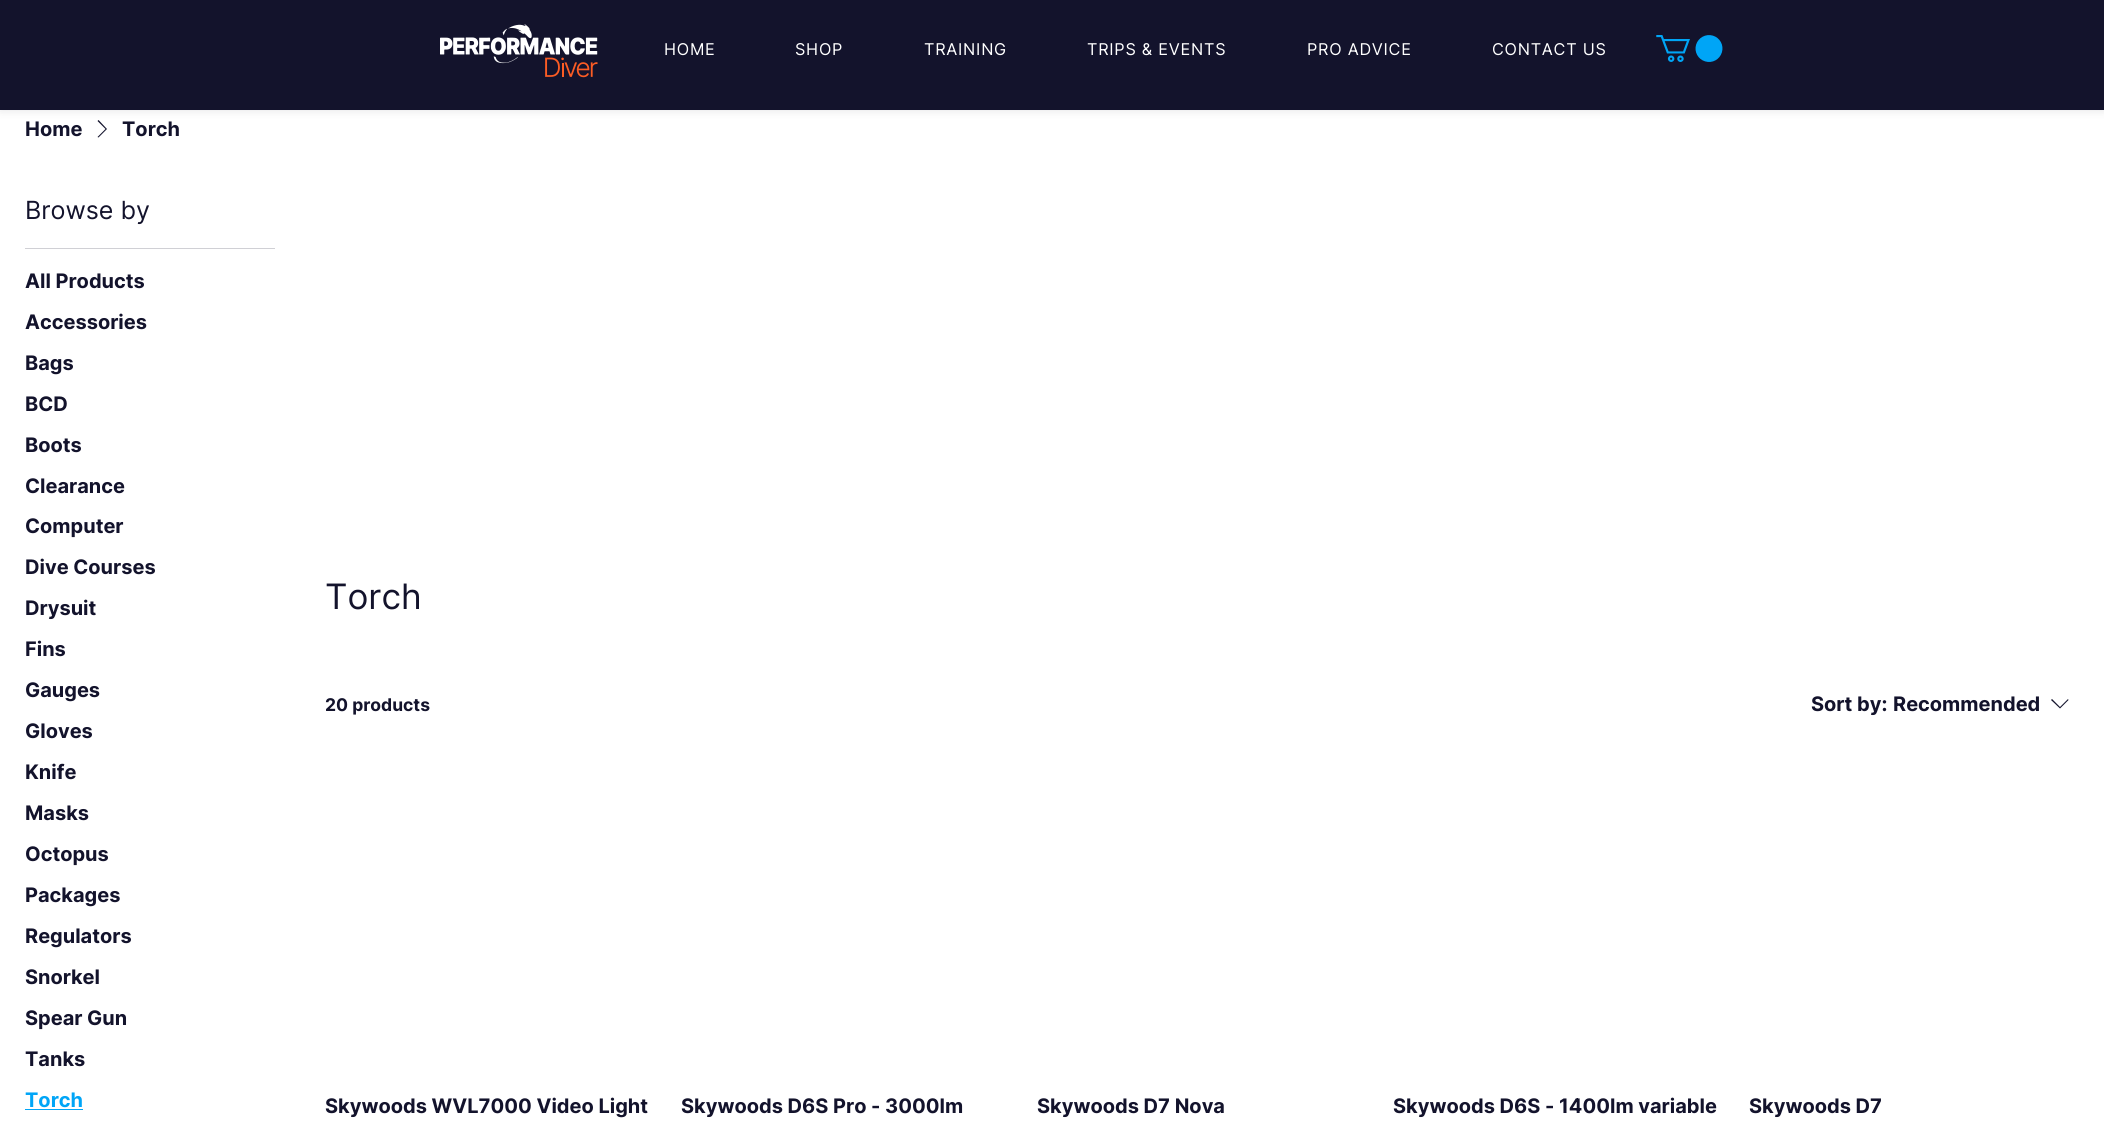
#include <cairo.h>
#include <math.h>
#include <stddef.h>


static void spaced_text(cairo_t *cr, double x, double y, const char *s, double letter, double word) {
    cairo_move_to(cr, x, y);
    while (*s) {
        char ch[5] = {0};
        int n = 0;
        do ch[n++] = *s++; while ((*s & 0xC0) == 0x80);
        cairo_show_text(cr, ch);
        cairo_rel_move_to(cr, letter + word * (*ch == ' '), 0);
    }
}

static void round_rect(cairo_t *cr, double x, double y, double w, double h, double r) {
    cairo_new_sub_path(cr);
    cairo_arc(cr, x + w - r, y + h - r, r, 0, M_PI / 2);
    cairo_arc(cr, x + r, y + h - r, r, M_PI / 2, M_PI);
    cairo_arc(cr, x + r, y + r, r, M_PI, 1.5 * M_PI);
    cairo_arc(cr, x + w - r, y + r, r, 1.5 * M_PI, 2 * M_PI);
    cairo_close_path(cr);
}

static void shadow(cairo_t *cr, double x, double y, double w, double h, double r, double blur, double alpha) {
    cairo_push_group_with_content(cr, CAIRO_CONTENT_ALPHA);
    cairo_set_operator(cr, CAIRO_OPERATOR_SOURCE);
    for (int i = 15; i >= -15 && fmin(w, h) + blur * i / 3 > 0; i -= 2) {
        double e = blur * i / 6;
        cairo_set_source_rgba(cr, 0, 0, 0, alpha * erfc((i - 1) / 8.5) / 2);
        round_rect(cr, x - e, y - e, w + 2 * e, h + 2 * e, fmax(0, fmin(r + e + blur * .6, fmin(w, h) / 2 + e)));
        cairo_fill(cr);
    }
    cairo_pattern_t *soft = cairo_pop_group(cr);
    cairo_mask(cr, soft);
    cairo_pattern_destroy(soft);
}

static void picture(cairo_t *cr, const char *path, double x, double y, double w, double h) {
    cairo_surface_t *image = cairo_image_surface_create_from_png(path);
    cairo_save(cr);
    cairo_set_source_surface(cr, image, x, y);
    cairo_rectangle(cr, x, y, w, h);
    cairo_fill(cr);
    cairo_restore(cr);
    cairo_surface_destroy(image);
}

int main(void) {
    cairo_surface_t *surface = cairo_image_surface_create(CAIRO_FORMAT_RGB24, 2104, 1138);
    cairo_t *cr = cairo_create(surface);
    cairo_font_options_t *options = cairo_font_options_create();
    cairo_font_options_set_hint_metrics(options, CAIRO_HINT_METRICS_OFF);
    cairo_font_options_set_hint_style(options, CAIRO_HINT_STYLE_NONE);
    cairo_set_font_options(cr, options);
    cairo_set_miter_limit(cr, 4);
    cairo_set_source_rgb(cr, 1, 1, 1);
    cairo_paint(cr);
    cairo_set_source_rgb(cr, 0.078, 0.078, 0.173);
    cairo_set_fill_rule(cr, CAIRO_FILL_RULE_EVEN_ODD);
    cairo_new_path(cr);
    cairo_move_to(cr, 98.5, 120);
    cairo_line_to(cr, 107, 129);
    cairo_line_to(cr, 98.5, 137.5);
    cairo_line_to(cr, 97.5, 137);
    cairo_line_to(cr, 105.5, 129);
    cairo_line_to(cr, 97.5, 121);
    cairo_close_path(cr);
    cairo_fill(cr);
    cairo_set_source_rgb(cr, 0.204, 0.204, 0.243);
    shadow(cr, 0, 0, 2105, 110, 0, 5, 0.14);
    cairo_set_source_rgb(cr, 0.078, 0.078, 0.173);
    cairo_rectangle(cr, 0, 0, 2104, 110);
    cairo_fill(cr);
    picture(cr, "img1.png", 440, 24, 158, 54);
    cairo_select_font_face(cr, "Inter", CAIRO_FONT_SLANT_NORMAL, CAIRO_FONT_WEIGHT_NORMAL);
    cairo_set_font_size(cr, 16.25);
    cairo_set_source_rgb(cr, 1, 1, 1);
    spaced_text(cr, 664, 55, "HOME", 0.75, 0);
    spaced_text(cr, 795, 55, "SHOP", 0.75, 0);
    spaced_text(cr, 924, 55, "TRAINING", 0.75, 0);
    spaced_text(cr, 1087, 55, "TRIPS & EVENTS", 0.75, 0);
    spaced_text(cr, 1307, 55, "PRO ADVICE", 0.75, 0);
    spaced_text(cr, 1492, 55, "CONTACT US", 0.75, 0);
    picture(cr, "img2.png", 1656, 35, 67, 27);
    cairo_select_font_face(cr, "Inter", CAIRO_FONT_SLANT_NORMAL, CAIRO_FONT_WEIGHT_BOLD);
    cairo_set_font_size(cr, 20);
    cairo_set_source_rgb(cr, 0.078, 0.078, 0.173);
    cairo_move_to(cr, 25, 136);
    cairo_show_text(cr, "Home");
    cairo_move_to(cr, 122, 136);
    cairo_show_text(cr, "Torch");
    cairo_set_source_rgb(cr, 0.816, 0.816, 0.835);
    cairo_rectangle(cr, 25, 248, 250, 1);
    cairo_fill(cr);
    cairo_select_font_face(cr, "Inter", CAIRO_FONT_SLANT_NORMAL, CAIRO_FONT_WEIGHT_NORMAL);
    cairo_set_font_size(cr, 25);
    cairo_set_source_rgb(cr, 0.078, 0.078, 0.173);
    cairo_move_to(cr, 25, 219);
    cairo_show_text(cr, "Browse by");
    cairo_select_font_face(cr, "Inter", CAIRO_FONT_SLANT_NORMAL, CAIRO_FONT_WEIGHT_BOLD);
    cairo_set_font_size(cr, 20);
    cairo_move_to(cr, 25, 288);
    cairo_show_text(cr, "All Products");
    cairo_move_to(cr, 25, 329);
    cairo_show_text(cr, "Accessories");
    cairo_move_to(cr, 25, 370);
    cairo_show_text(cr, "Bags");
    cairo_move_to(cr, 25, 411);
    cairo_show_text(cr, "BCD");
    cairo_move_to(cr, 25, 452);
    cairo_show_text(cr, "Boots");
    cairo_move_to(cr, 25, 493);
    cairo_show_text(cr, "Clearance");
    cairo_move_to(cr, 25, 533);
    cairo_show_text(cr, "Computer");
    cairo_move_to(cr, 25, 574);
    cairo_show_text(cr, "Dive Courses");
    cairo_move_to(cr, 25, 615);
    cairo_show_text(cr, "Drysuit");
    cairo_move_to(cr, 25, 656);
    cairo_show_text(cr, "Fins");
    cairo_move_to(cr, 25, 697);
    cairo_show_text(cr, "Gauges");
    cairo_move_to(cr, 25, 738);
    cairo_show_text(cr, "Gloves");
    cairo_move_to(cr, 25, 779);
    cairo_show_text(cr, "Knife");
    cairo_move_to(cr, 25, 820);
    cairo_show_text(cr, "Masks");
    cairo_move_to(cr, 25, 861);
    cairo_show_text(cr, "Octopus");
    cairo_move_to(cr, 25, 902);
    cairo_show_text(cr, "Packages");
    cairo_move_to(cr, 25, 943);
    cairo_show_text(cr, "Regulators");
    cairo_move_to(cr, 25, 984);
    cairo_show_text(cr, "Snorkel");
    cairo_move_to(cr, 25, 1025);
    cairo_show_text(cr, "Spear Gun");
    cairo_move_to(cr, 25, 1066);
    cairo_show_text(cr, "Tanks");
    cairo_set_source_rgb(cr, 0, 0.647, 0.965);
    cairo_move_to(cr, 25, 1107);
    cairo_show_text(cr, "Torch");
    cairo_rectangle(cr, 25, 1109, 58, 1);
    cairo_fill(cr);
    cairo_select_font_face(cr, "Inter", CAIRO_FONT_SLANT_NORMAL, CAIRO_FONT_WEIGHT_NORMAL);
    cairo_set_font_size(cr, 35);
    cairo_set_source_rgb(cr, 0.078, 0.078, 0.173);
    cairo_move_to(cr, 325, 609);
    cairo_show_text(cr, "Torch");
    cairo_select_font_face(cr, "Inter", CAIRO_FONT_SLANT_NORMAL, CAIRO_FONT_WEIGHT_BOLD);
    cairo_set_font_size(cr, 17.5);
    cairo_move_to(cr, 325, 711);
    cairo_show_text(cr, "20 products");
    cairo_set_font_size(cr, 20);
    cairo_move_to(cr, 1811, 711);
    cairo_show_text(cr, "Sort by:");
    cairo_move_to(cr, 1893, 711);
    cairo_show_text(cr, "Recommended");
    cairo_new_path(cr);
    cairo_move_to(cr, 2068, 699);
    cairo_line_to(cr, 2068.5, 700);
    cairo_line_to(cr, 2060, 708.5);
    cairo_line_to(cr, 2051, 700);
    cairo_line_to(cr, 2052, 699);
    cairo_line_to(cr, 2060, 707);
    cairo_close_path(cr);
    cairo_fill(cr);
    cairo_move_to(cr, 325, 1113);
    cairo_show_text(cr, "Skywoods WVL7000 Video Light");
    cairo_move_to(cr, 681, 1113);
    cairo_show_text(cr, "Skywoods D6S Pro - 3000lm");
    cairo_move_to(cr, 1037, 1113);
    cairo_show_text(cr, "Skywoods D7 Nova");
    cairo_move_to(cr, 1393, 1113);
    cairo_show_text(cr, "Skywoods D6S - 1400lm variable");
    cairo_move_to(cr, 1749, 1113);
    cairo_show_text(cr, "Skywoods D7");
    cairo_surface_write_to_png(surface, "page.png");
    cairo_font_options_destroy(options);
    cairo_destroy(cr);
    cairo_surface_destroy(surface);
    return 0;
}
